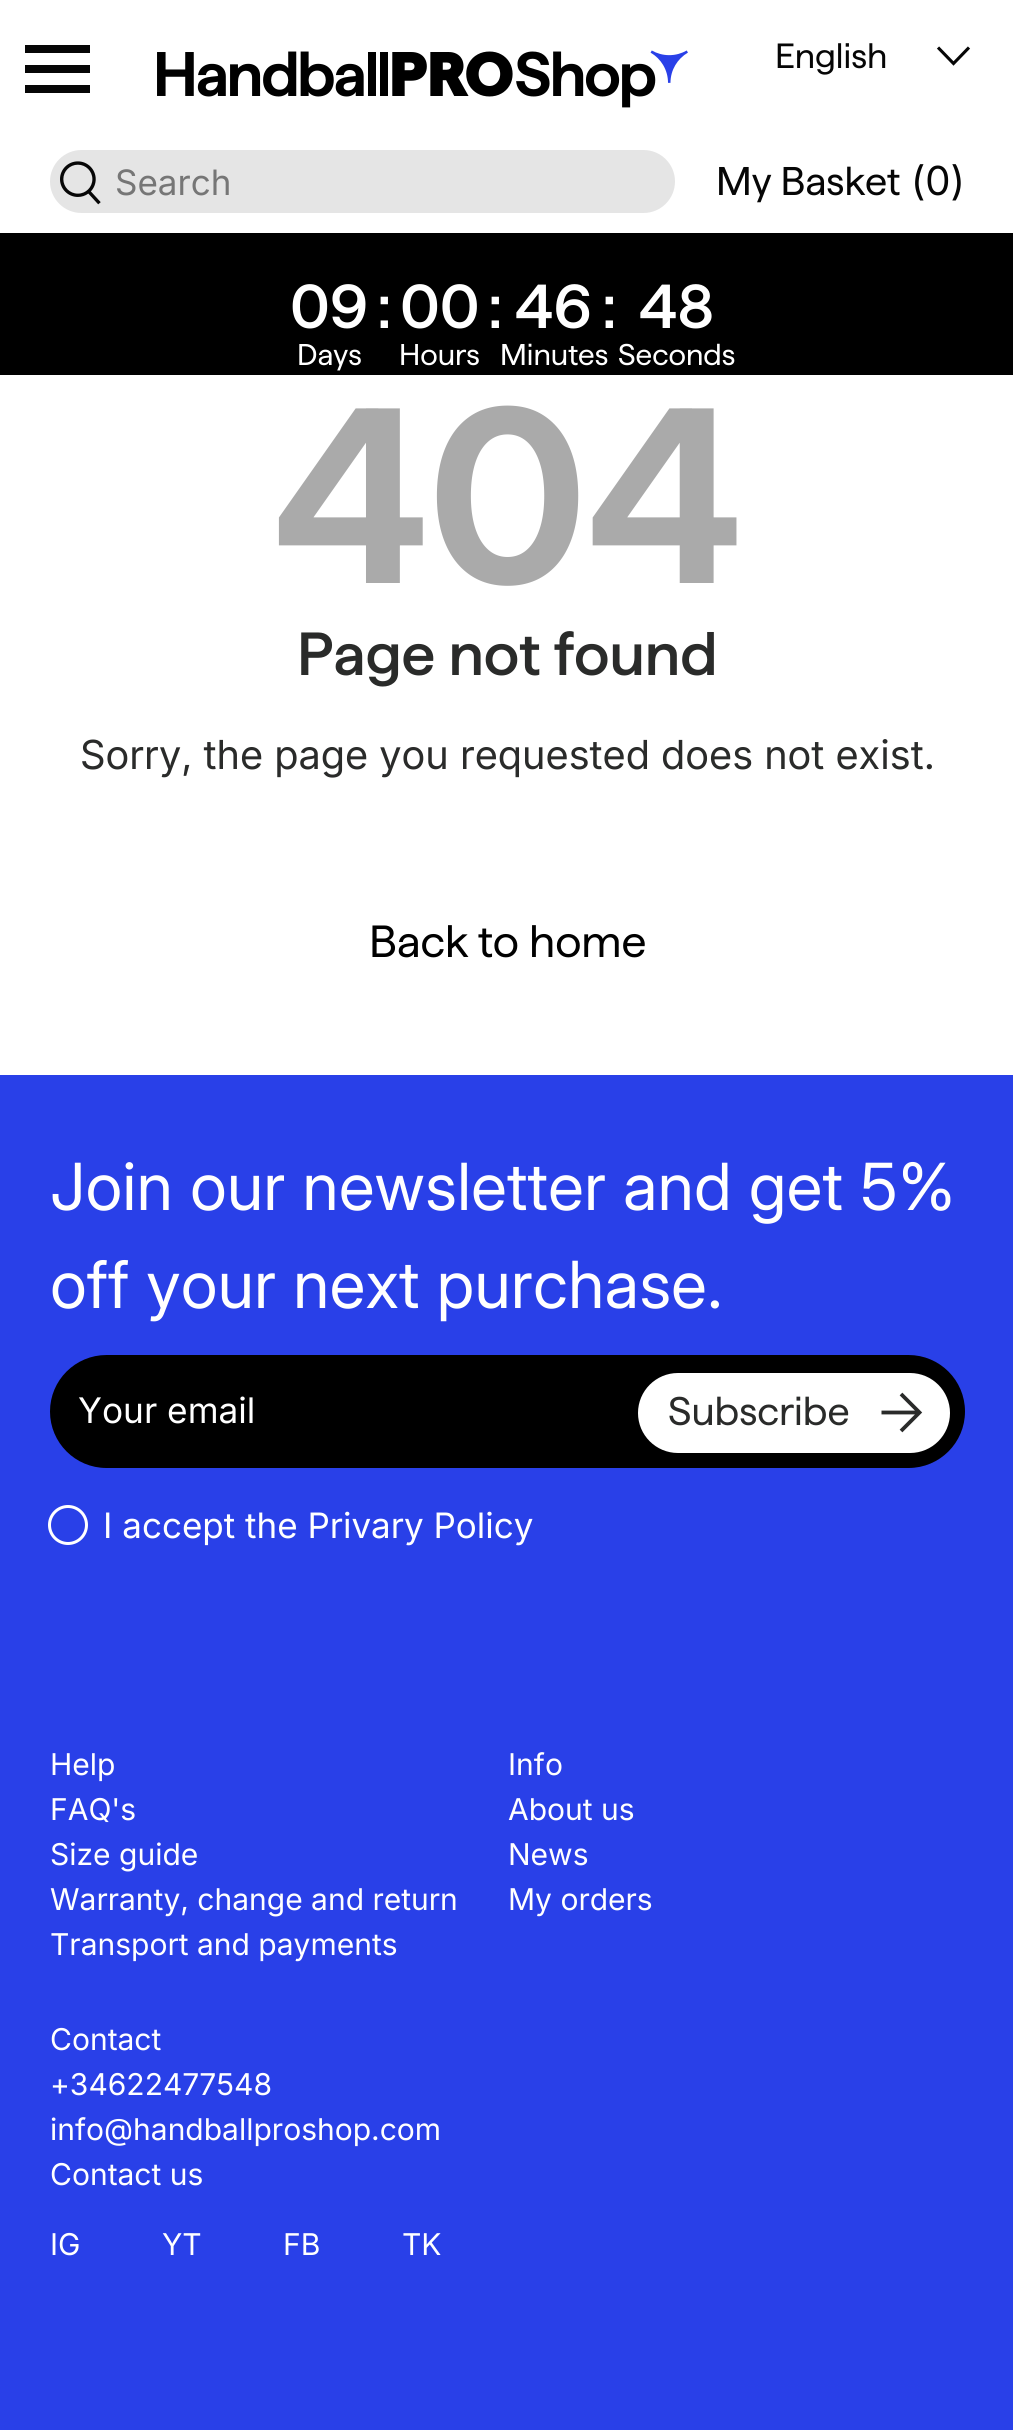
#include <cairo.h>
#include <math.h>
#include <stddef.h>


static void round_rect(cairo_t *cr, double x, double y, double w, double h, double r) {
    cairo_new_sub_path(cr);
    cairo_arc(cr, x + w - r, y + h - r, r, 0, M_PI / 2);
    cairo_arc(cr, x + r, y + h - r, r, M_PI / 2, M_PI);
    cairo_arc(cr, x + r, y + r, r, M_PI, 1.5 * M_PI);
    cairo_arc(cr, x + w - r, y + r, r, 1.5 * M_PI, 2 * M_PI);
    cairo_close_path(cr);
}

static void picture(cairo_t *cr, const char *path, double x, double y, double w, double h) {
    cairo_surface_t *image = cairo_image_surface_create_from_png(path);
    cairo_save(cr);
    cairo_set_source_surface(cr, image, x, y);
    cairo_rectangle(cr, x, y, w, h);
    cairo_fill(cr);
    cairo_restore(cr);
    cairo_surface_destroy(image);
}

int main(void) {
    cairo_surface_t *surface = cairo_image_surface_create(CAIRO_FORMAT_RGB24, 1013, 2430);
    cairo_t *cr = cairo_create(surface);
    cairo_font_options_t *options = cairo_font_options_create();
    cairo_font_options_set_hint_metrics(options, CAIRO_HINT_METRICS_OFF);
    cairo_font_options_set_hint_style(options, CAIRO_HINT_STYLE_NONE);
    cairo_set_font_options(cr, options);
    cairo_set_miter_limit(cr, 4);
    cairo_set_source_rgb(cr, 1, 1, 1);
    cairo_paint(cr);
    cairo_set_source_rgb(cr, 0.027, 0.027, 0.027);
    cairo_rectangle(cr, 25, 45, 65, 8);
    cairo_fill(cr);
    cairo_rectangle(cr, 25, 85, 65, 8);
    cairo_fill(cr);
    cairo_rectangle(cr, 25, 65, 65, 8);
    cairo_fill(cr);
    picture(cr, "img1.png", 157, 50, 531, 58);
    cairo_select_font_face(cr, "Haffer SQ", CAIRO_FONT_SLANT_NORMAL, CAIRO_FONT_WEIGHT_NORMAL);
    cairo_set_font_size(cr, 35);
    cairo_move_to(cr, 775, 68);
    cairo_show_text(cr, "English");
    cairo_new_path(cr);
    cairo_move_to(cr, 969, 47.5);
    cairo_line_to(cr, 953.5, 63.5);
    cairo_line_to(cr, 938, 47.5);
    cairo_set_line_width(cr, 3.1);
    cairo_stroke(cr);
    cairo_set_source_rgb(cr, 0.898, 0.898, 0.898);
    round_rect(cr, 50, 150, 625, 63, 31.5);
    cairo_fill(cr);
    picture(cr, "img2.png", 60, 161, 41, 44);
    cairo_select_font_face(cr, "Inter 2", CAIRO_FONT_SLANT_NORMAL, CAIRO_FONT_WEIGHT_NORMAL);
    cairo_set_source_rgb(cr, 0.463, 0.463, 0.463);
    cairo_move_to(cr, 115, 195);
    cairo_show_text(cr, "Search");
    cairo_select_font_face(cr, "Haffer SQ", CAIRO_FONT_SLANT_NORMAL, CAIRO_FONT_WEIGHT_NORMAL);
    cairo_set_font_size(cr, 40);
    cairo_set_source_rgb(cr, 0.027, 0.027, 0.027);
    cairo_move_to(cr, 716, 195);
    cairo_show_text(cr, "My Basket");
    cairo_select_font_face(cr, "Inter", CAIRO_FONT_SLANT_NORMAL, CAIRO_FONT_WEIGHT_NORMAL);
    cairo_move_to(cr, 911, 195);
    cairo_show_text(cr, "(0)");
    cairo_set_source_rgb(cr, 0, 0, 0);
    cairo_rectangle(cr, 0, 233, 1013, 142);
    cairo_fill(cr);
    cairo_select_font_face(cr, "Haffer SQ Medium", CAIRO_FONT_SLANT_NORMAL, CAIRO_FONT_WEIGHT_NORMAL);
    cairo_set_font_size(cr, 62);
    cairo_set_source_rgb(cr, 1, 1, 1);
    cairo_move_to(cr, 290, 328);
    cairo_show_text(cr, "09");
    cairo_move_to(cr, 377, 328);
    cairo_show_text(cr, ":");
    cairo_select_font_face(cr, "Haffer SQ", CAIRO_FONT_SLANT_NORMAL, CAIRO_FONT_WEIGHT_NORMAL);
    cairo_set_font_size(cr, 30);
    cairo_move_to(cr, 297, 365);
    cairo_show_text(cr, "Days");
    cairo_select_font_face(cr, "Haffer SQ Medium", CAIRO_FONT_SLANT_NORMAL, CAIRO_FONT_WEIGHT_NORMAL);
    cairo_set_font_size(cr, 62);
    cairo_move_to(cr, 400, 328);
    cairo_show_text(cr, "00");
    cairo_move_to(cr, 488, 328);
    cairo_show_text(cr, ":");
    cairo_select_font_face(cr, "Haffer SQ", CAIRO_FONT_SLANT_NORMAL, CAIRO_FONT_WEIGHT_NORMAL);
    cairo_set_font_size(cr, 30);
    cairo_move_to(cr, 399, 365);
    cairo_show_text(cr, "Hours");
    cairo_select_font_face(cr, "Haffer SQ Medium", CAIRO_FONT_SLANT_NORMAL, CAIRO_FONT_WEIGHT_NORMAL);
    cairo_set_font_size(cr, 62);
    cairo_move_to(cr, 515, 328);
    cairo_show_text(cr, "46");
    cairo_move_to(cr, 602, 328);
    cairo_show_text(cr, ":");
    cairo_select_font_face(cr, "Haffer SQ", CAIRO_FONT_SLANT_NORMAL, CAIRO_FONT_WEIGHT_NORMAL);
    cairo_set_font_size(cr, 30);
    cairo_move_to(cr, 500, 365);
    cairo_show_text(cr, "Minutes");
    cairo_select_font_face(cr, "Haffer SQ Medium", CAIRO_FONT_SLANT_NORMAL, CAIRO_FONT_WEIGHT_NORMAL);
    cairo_set_font_size(cr, 62);
    cairo_move_to(cr, 639, 328);
    cairo_show_text(cr, "48");
    cairo_select_font_face(cr, "Haffer SQ", CAIRO_FONT_SLANT_NORMAL, CAIRO_FONT_WEIGHT_NORMAL);
    cairo_set_font_size(cr, 30);
    cairo_move_to(cr, 618, 365);
    cairo_show_text(cr, "Seconds");
    cairo_select_font_face(cr, "Inter", CAIRO_FONT_SLANT_NORMAL, CAIRO_FONT_WEIGHT_BOLD);
    cairo_set_font_size(cr, 240);
    cairo_set_source_rgb(cr, 0.667, 0.667, 0.667);
    cairo_move_to(cr, 272, 583);
    cairo_show_text(cr, "404");
    cairo_select_font_face(cr, "Haffer SQ Medium", CAIRO_FONT_SLANT_NORMAL, CAIRO_FONT_WEIGHT_NORMAL);
    cairo_set_font_size(cr, 60.75);
    cairo_set_source_rgb(cr, 0.165, 0.169, 0.165);
    cairo_move_to(cr, 297, 675);
    cairo_show_text(cr, "Page not found");
    cairo_select_font_face(cr, "Inter", CAIRO_FONT_SLANT_NORMAL, CAIRO_FONT_WEIGHT_NORMAL);
    cairo_set_font_size(cr, 40);
    cairo_move_to(cr, 80, 769);
    cairo_show_text(cr, "Sorry, the page you requested does not exist.");
    cairo_select_font_face(cr, "Haffer SQ", CAIRO_FONT_SLANT_NORMAL, CAIRO_FONT_WEIGHT_NORMAL);
    cairo_set_font_size(cr, 45);
    cairo_set_source_rgb(cr, 0, 0, 0);
    cairo_move_to(cr, 369, 957);
    cairo_show_text(cr, "Back to home");
    cairo_set_source_rgb(cr, 0.161, 0.251, 0.91);
    cairo_rectangle(cr, 0, 1075, 1013, 1355);
    cairo_fill(cr);
    cairo_select_font_face(cr, "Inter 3", CAIRO_FONT_SLANT_NORMAL, CAIRO_FONT_WEIGHT_NORMAL);
    cairo_set_font_size(cr, 65);
    cairo_set_source_rgb(cr, 1, 1, 1);
    cairo_move_to(cr, 50, 1210);
    cairo_show_text(cr, "Join our newsletter and get 5%");
    cairo_move_to(cr, 50, 1308);
    cairo_show_text(cr, "off your next purchase.");
    cairo_set_source_rgb(cr, 0, 0, 0);
    round_rect(cr, 50, 1355, 915, 113, 56.5);
    cairo_fill(cr);
    cairo_select_font_face(cr, "Inter 2", CAIRO_FONT_SLANT_NORMAL, CAIRO_FONT_WEIGHT_NORMAL);
    cairo_set_font_size(cr, 35.25);
    cairo_set_source_rgb(cr, 1, 1, 1);
    cairo_move_to(cr, 78, 1423);
    cairo_show_text(cr, "Your email");
    round_rect(cr, 638, 1373, 312, 80, 40);
    cairo_fill(cr);
    cairo_select_font_face(cr, "Haffer SQ", CAIRO_FONT_SLANT_NORMAL, CAIRO_FONT_WEIGHT_NORMAL);
    cairo_set_font_size(cr, 40);
    cairo_set_source_rgb(cr, 0.165, 0.169, 0.165);
    cairo_move_to(cr, 668, 1425);
    cairo_show_text(cr, "Subscribe");
    cairo_new_path(cr);
    cairo_move_to(cr, 881.5, 1412.5);
    cairo_line_to(cr, 918.5, 1412.5);
    cairo_move_to(cr, 901, 1394);
    cairo_line_to(cr, 919.5, 1412.5);
    cairo_line_to(cr, 901, 1431);
    cairo_set_line_width(cr, 3.8);
    cairo_stroke(cr);
    cairo_arc(cr, 68, 1525, 18.5, 0, 2 * M_PI);
    cairo_set_source_rgb(cr, 1, 1, 1);
    cairo_set_line_width(cr, 3);
    cairo_stroke(cr);
    cairo_select_font_face(cr, "Inter 2", CAIRO_FONT_SLANT_NORMAL, CAIRO_FONT_WEIGHT_NORMAL);
    cairo_set_font_size(cr, 35);
    cairo_move_to(cr, 103, 1538);
    cairo_show_text(cr, "I accept the Privary Policy");
    cairo_set_font_size(cr, 30);
    cairo_move_to(cr, 50, 1775);
    cairo_show_text(cr, "Help");
    cairo_move_to(cr, 50, 1820);
    cairo_show_text(cr, "FAQ's");
    cairo_move_to(cr, 50, 1865);
    cairo_show_text(cr, "Size guide");
    cairo_move_to(cr, 50, 1910);
    cairo_show_text(cr, "Warranty, change and return");
    cairo_move_to(cr, 50, 1955);
    cairo_show_text(cr, "Transport and payments");
    cairo_move_to(cr, 508, 1775);
    cairo_show_text(cr, "Info");
    cairo_move_to(cr, 508, 1820);
    cairo_show_text(cr, "About us");
    cairo_move_to(cr, 508, 1865);
    cairo_show_text(cr, "News");
    cairo_move_to(cr, 508, 1910);
    cairo_show_text(cr, "My orders");
    cairo_move_to(cr, 50, 2050);
    cairo_show_text(cr, "Contact");
    cairo_move_to(cr, 50, 2095);
    cairo_show_text(cr, "+34622477548");
    cairo_move_to(cr, 50, 2140);
    cairo_show_text(cr, "info@handballproshop.com");
    cairo_move_to(cr, 50, 2185);
    cairo_show_text(cr, "Contact us");
    cairo_move_to(cr, 50, 2255);
    cairo_show_text(cr, "IG");
    cairo_move_to(cr, 162, 2255);
    cairo_show_text(cr, "YT");
    cairo_move_to(cr, 283, 2255);
    cairo_show_text(cr, "FB");
    cairo_move_to(cr, 402, 2255);
    cairo_show_text(cr, "TK");
    cairo_surface_write_to_png(surface, "page.png");
    cairo_font_options_destroy(options);
    cairo_destroy(cr);
    cairo_surface_destroy(surface);
    return 0;
}
